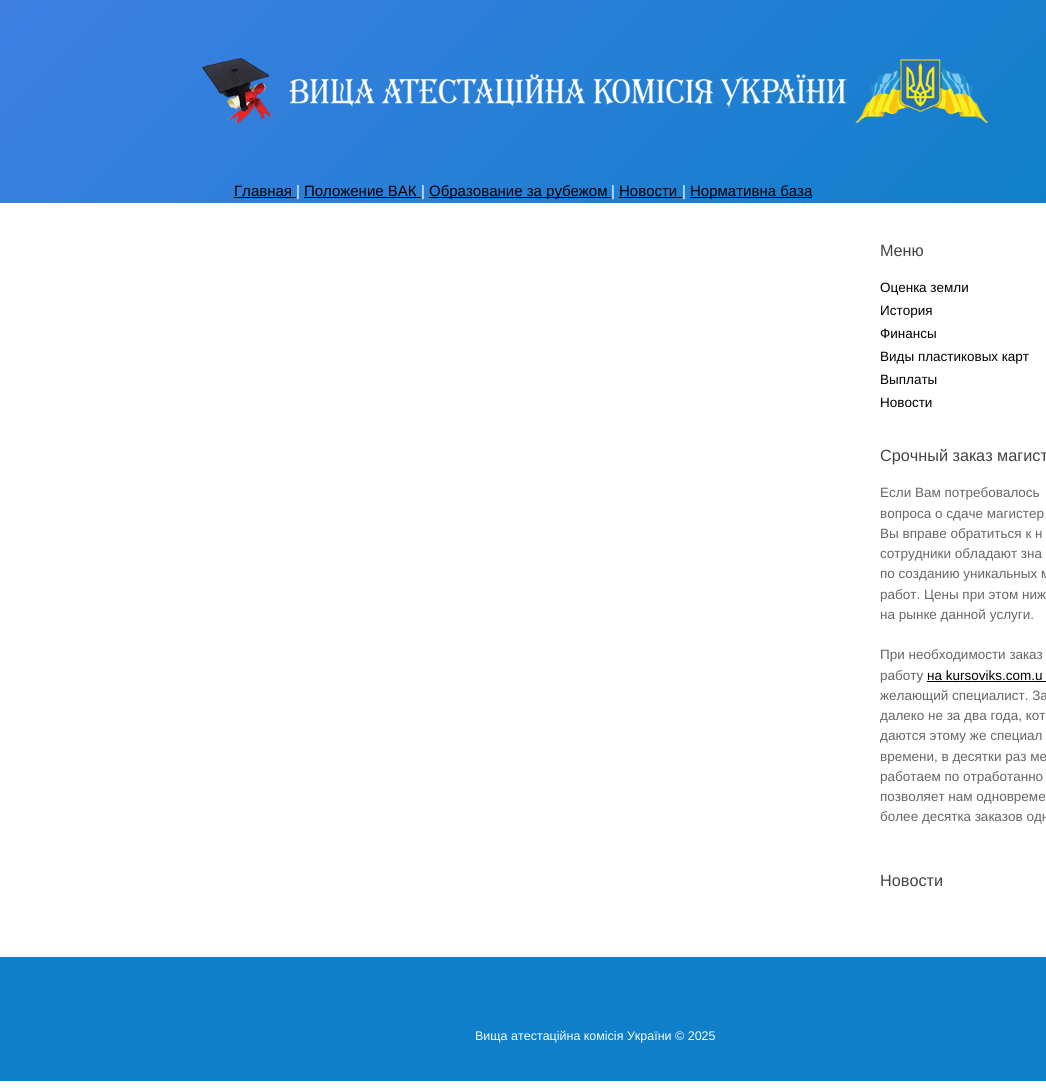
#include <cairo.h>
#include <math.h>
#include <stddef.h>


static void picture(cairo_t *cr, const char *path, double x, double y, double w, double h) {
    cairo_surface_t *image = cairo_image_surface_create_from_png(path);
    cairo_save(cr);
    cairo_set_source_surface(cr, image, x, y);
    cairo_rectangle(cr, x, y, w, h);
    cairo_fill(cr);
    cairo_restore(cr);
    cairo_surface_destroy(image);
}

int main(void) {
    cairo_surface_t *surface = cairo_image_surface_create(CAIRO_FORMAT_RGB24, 1046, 1088);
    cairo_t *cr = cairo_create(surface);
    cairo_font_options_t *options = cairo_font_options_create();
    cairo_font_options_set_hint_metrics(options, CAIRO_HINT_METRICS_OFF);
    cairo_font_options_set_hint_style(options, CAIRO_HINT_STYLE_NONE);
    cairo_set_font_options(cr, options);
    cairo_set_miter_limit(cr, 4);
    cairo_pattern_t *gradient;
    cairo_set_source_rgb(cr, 1, 1, 1);
    cairo_paint(cr);
    gradient = cairo_pattern_create_linear(835, 414, 211, -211);
    cairo_pattern_add_color_stop_rgba(gradient, 0, 0.063, 0.498, 0.788, 1);
    cairo_pattern_add_color_stop_rgba(gradient, 1, 0.247, 0.498, 0.89, 1);
    cairo_set_source(cr, gradient);
    cairo_pattern_destroy(gradient);
    cairo_rectangle(cr, 0, 0, 1046, 203);
    cairo_fill(cr);
    picture(cr, "img1.png", 202, 58, 786, 66);
    cairo_select_font_face(cr, "Liberation Sans", CAIRO_FONT_SLANT_NORMAL, CAIRO_FONT_WEIGHT_NORMAL);
    cairo_set_font_size(cr, 15);
    cairo_set_source_rgb(cr, 0, 0, 0);
    cairo_move_to(cr, 234, 196);
    cairo_show_text(cr, "Главная");
    cairo_set_source_rgb(cr, 1, 1, 1);
    cairo_move_to(cr, 296, 196);
    cairo_show_text(cr, "|");
    cairo_set_source_rgb(cr, 0, 0, 0);
    cairo_rectangle(cr, 234, 197, 62, 1);
    cairo_fill(cr);
    cairo_move_to(cr, 304, 196);
    cairo_show_text(cr, "Положение ВАК");
    cairo_set_source_rgb(cr, 1, 1, 1);
    cairo_move_to(cr, 421, 196);
    cairo_show_text(cr, "|");
    cairo_set_source_rgb(cr, 0, 0, 0);
    cairo_rectangle(cr, 304, 197, 117, 1);
    cairo_fill(cr);
    cairo_rectangle(cr, 429, 197, 182, 1);
    cairo_fill(cr);
    cairo_move_to(cr, 429, 196);
    cairo_show_text(cr, "Образование за рубежом");
    cairo_set_source_rgb(cr, 1, 1, 1);
    cairo_move_to(cr, 611, 196);
    cairo_show_text(cr, "|");
    cairo_set_source_rgb(cr, 0, 0, 0);
    cairo_move_to(cr, 619, 196);
    cairo_show_text(cr, "Новости");
    cairo_set_source_rgb(cr, 1, 1, 1);
    cairo_move_to(cr, 682, 196);
    cairo_show_text(cr, "|");
    cairo_set_source_rgb(cr, 0, 0, 0);
    cairo_rectangle(cr, 619, 197, 63, 1);
    cairo_fill(cr);
    cairo_rectangle(cr, 690, 197, 122, 1);
    cairo_fill(cr);
    cairo_move_to(cr, 690, 196);
    cairo_show_text(cr, "Нормативна база");
    cairo_set_font_size(cr, 16.25);
    cairo_set_source_rgb(cr, 0.267, 0.267, 0.267);
    cairo_move_to(cr, 880, 256);
    cairo_show_text(cr, "Меню");
    cairo_set_font_size(cr, 13.5);
    cairo_set_source_rgb(cr, 0, 0, 0);
    cairo_move_to(cr, 880, 292);
    cairo_show_text(cr, "Оценка земли");
    cairo_move_to(cr, 880, 315);
    cairo_show_text(cr, "История");
    cairo_move_to(cr, 880, 338);
    cairo_show_text(cr, "Финансы");
    cairo_move_to(cr, 880, 361);
    cairo_show_text(cr, "Виды пластиковых карт");
    cairo_move_to(cr, 880, 384);
    cairo_show_text(cr, "Выплаты");
    cairo_move_to(cr, 880, 407);
    cairo_show_text(cr, "Новости");
    cairo_set_font_size(cr, 16.25);
    cairo_set_source_rgb(cr, 0.267, 0.267, 0.267);
    cairo_move_to(cr, 880, 461);
    cairo_show_text(cr, "Срочный заказ магист");
    cairo_set_font_size(cr, 13.5);
    cairo_set_source_rgb(cr, 0.4, 0.4, 0.4);
    cairo_move_to(cr, 880, 497);
    cairo_show_text(cr, "Если Вам потребовалось");
    cairo_move_to(cr, 880, 518);
    cairo_show_text(cr, "вопроса о сдаче магистер");
    cairo_move_to(cr, 880, 538);
    cairo_show_text(cr, "Вы вправе обратиться к н");
    cairo_move_to(cr, 880, 558);
    cairo_show_text(cr, "сотрудники обладают зна");
    cairo_move_to(cr, 880, 578);
    cairo_show_text(cr, "по созданию уникальных м");
    cairo_move_to(cr, 880, 599);
    cairo_show_text(cr, "работ. Цены при этом ниж");
    cairo_move_to(cr, 880, 619);
    cairo_show_text(cr, "на рынке данной услуги.");
    cairo_move_to(cr, 880, 659);
    cairo_show_text(cr, "При необходимости заказ");
    cairo_move_to(cr, 880, 680);
    cairo_show_text(cr, "работу");
    cairo_set_source_rgb(cr, 0, 0, 0);
    cairo_move_to(cr, 927, 680);
    cairo_show_text(cr, "на kursoviks.com.u");
    cairo_rectangle(cr, 927, 681, 119, 1);
    cairo_fill(cr);
    cairo_set_source_rgb(cr, 0.4, 0.4, 0.4);
    cairo_move_to(cr, 880, 700);
    cairo_show_text(cr, "желающий специалист. За");
    cairo_move_to(cr, 880, 720);
    cairo_show_text(cr, "далеко не за два года, кот");
    cairo_move_to(cr, 880, 740);
    cairo_show_text(cr, "даются этому же специал");
    cairo_move_to(cr, 880, 761);
    cairo_show_text(cr, "времени, в десятки раз ме");
    cairo_move_to(cr, 880, 781);
    cairo_show_text(cr, "работаем по отработанно");
    cairo_move_to(cr, 880, 801);
    cairo_show_text(cr, "позволяет нам одновреме");
    cairo_move_to(cr, 880, 821);
    cairo_show_text(cr, "более десятка заказов одн");
    cairo_set_font_size(cr, 16.25);
    cairo_set_source_rgb(cr, 0.267, 0.267, 0.267);
    cairo_move_to(cr, 880, 886);
    cairo_show_text(cr, "Новости");
    cairo_set_source_rgb(cr, 0.063, 0.498, 0.788);
    cairo_rectangle(cr, 0, 957, 1046, 124);
    cairo_fill(cr);
    cairo_set_font_size(cr, 12.5);
    cairo_set_source_rgb(cr, 0.961, 1, 1);
    cairo_move_to(cr, 475, 1040);
    cairo_show_text(cr, "Вища атестаційна комісія України © 2025");
    cairo_surface_write_to_png(surface, "page.png");
    cairo_font_options_destroy(options);
    cairo_destroy(cr);
    cairo_surface_destroy(surface);
    return 0;
}
